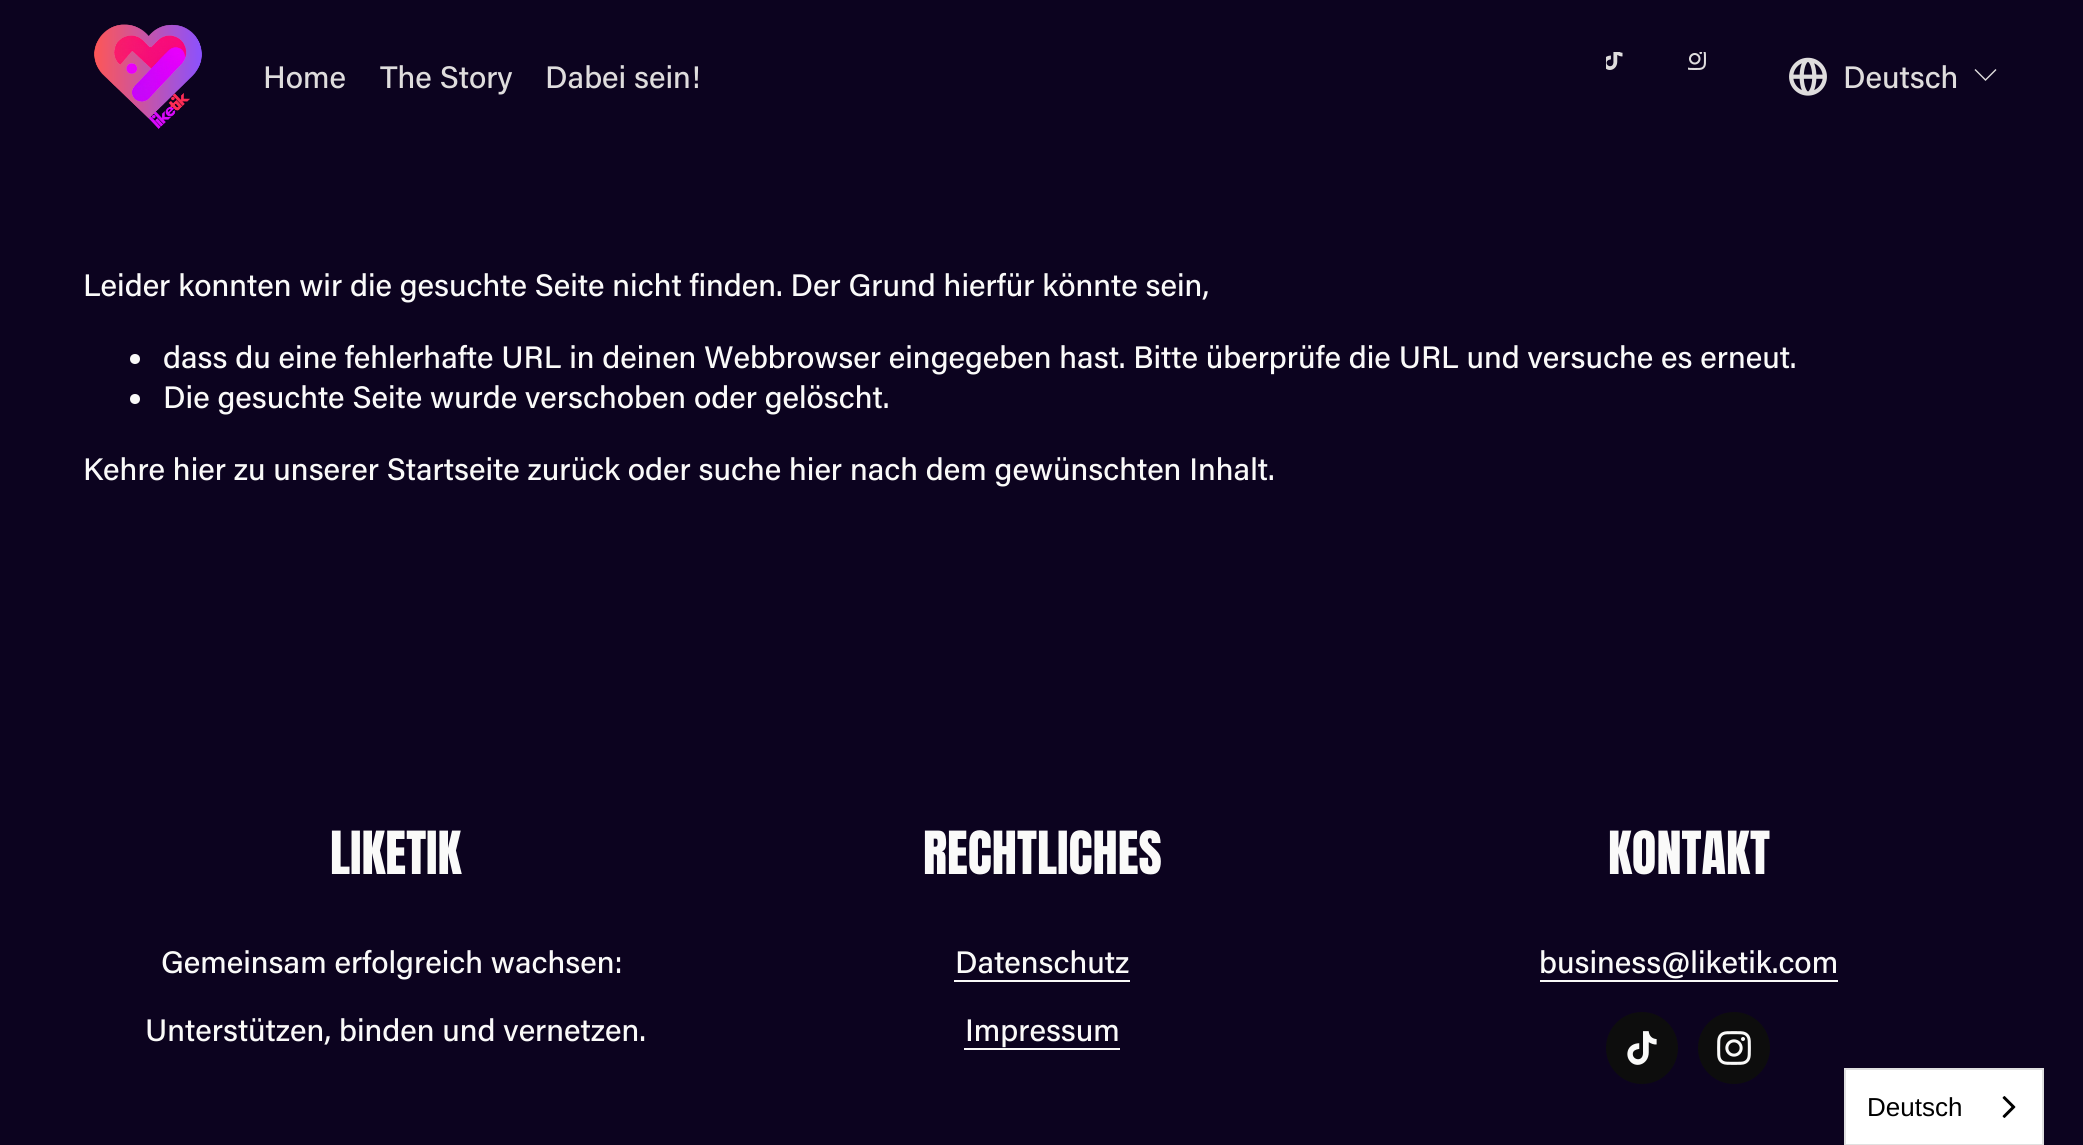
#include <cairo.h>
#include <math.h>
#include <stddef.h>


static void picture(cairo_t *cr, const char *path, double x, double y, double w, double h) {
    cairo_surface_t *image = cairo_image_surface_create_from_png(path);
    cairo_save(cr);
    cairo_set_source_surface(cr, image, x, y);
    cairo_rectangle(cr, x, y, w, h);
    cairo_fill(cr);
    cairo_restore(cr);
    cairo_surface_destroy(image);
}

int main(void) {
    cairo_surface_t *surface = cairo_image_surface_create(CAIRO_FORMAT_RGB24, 2083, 1145);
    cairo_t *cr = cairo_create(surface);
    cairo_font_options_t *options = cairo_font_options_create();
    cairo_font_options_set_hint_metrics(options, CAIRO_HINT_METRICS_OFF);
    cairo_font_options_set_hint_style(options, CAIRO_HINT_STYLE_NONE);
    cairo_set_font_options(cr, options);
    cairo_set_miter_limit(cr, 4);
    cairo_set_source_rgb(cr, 0.047, 0.012, 0.122);
    cairo_paint(cr);
    picture(cr, "img1.png", 94, 24, 108, 105);
    cairo_select_font_face(cr, "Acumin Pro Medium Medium", CAIRO_FONT_SLANT_NORMAL, CAIRO_FONT_WEIGHT_NORMAL);
    cairo_set_font_size(cr, 31.13);
    cairo_set_source_rgb(cr, 0.875, 0.867, 0.867);
    cairo_move_to(cr, 263, 88);
    cairo_show_text(cr, "Home");
    cairo_move_to(cr, 380, 88);
    cairo_show_text(cr, "The Story");
    cairo_move_to(cr, 545, 88);
    cairo_show_text(cr, "Dabei sein!");
    picture(cr, "img2.png", 1606, 52, 17, 18);
    picture(cr, "img3.png", 1688, 52, 18, 18);
    picture(cr, "img4.png", 1789, 57, 38, 39);
    cairo_move_to(cr, 1843, 88);
    cairo_show_text(cr, "Deutsch");
    cairo_new_path(cr);
    cairo_move_to(cr, 1995.5, 70);
    cairo_line_to(cr, 1985.5, 80);
    cairo_line_to(cr, 1975.5, 70);
    cairo_set_line_width(cr, 1.4);
    cairo_set_line_cap(cr, CAIRO_LINE_CAP_SQUARE);
    cairo_stroke(cr);
    cairo_set_source_rgb(cr, 0.98, 0.98, 0.976);
    cairo_move_to(cr, 83, 296);
    cairo_show_text(cr, "Leider konnten wir die gesuchte Seite nicht finden. Der Grund hierfür könnte sein,");
    cairo_new_path(cr);
    cairo_arc(cr, 135, 359, 5, 0, 2 * M_PI);
    cairo_fill(cr);
    cairo_move_to(cr, 163, 368);
    cairo_show_text(cr, "dass du eine fehlerhafte URL in deinen Webbrowser eingegeben hast. Bitte überprüfe die URL und versuche es erneut.");
    cairo_new_path(cr);
    cairo_arc(cr, 135, 399, 5, 0, 2 * M_PI);
    cairo_fill(cr);
    cairo_move_to(cr, 163, 408);
    cairo_show_text(cr, "Die gesuchte Seite wurde verschoben oder gelöscht.");
    cairo_move_to(cr, 83, 480);
    cairo_show_text(cr, "Kehre hier zu unserer Startseite zurück oder suche");
    cairo_move_to(cr, 789, 480);
    cairo_show_text(cr, "hier nach dem gewünschten Inhalt.");
    cairo_select_font_face(cr, "Anton", CAIRO_FONT_SLANT_NORMAL, CAIRO_FONT_WEIGHT_NORMAL);
    cairo_set_font_size(cr, 50.5);
    cairo_move_to(cr, 330, 874);
    cairo_show_text(cr, "LIKETIK");
    cairo_select_font_face(cr, "Acumin Pro Medium Medium", CAIRO_FONT_SLANT_NORMAL, CAIRO_FONT_WEIGHT_NORMAL);
    cairo_set_font_size(cr, 31.13);
    cairo_move_to(cr, 161, 973);
    cairo_show_text(cr, "Gemeinsam erfolgreich wachsen:");
    cairo_move_to(cr, 145, 1041);
    cairo_show_text(cr, "Unterstützen, binden und vernetzen.");
    cairo_select_font_face(cr, "Anton", CAIRO_FONT_SLANT_NORMAL, CAIRO_FONT_WEIGHT_NORMAL);
    cairo_set_font_size(cr, 50.5);
    cairo_move_to(cr, 923, 874);
    cairo_show_text(cr, "RECHTLICHES");
    cairo_select_font_face(cr, "Acumin Pro Medium Medium", CAIRO_FONT_SLANT_NORMAL, CAIRO_FONT_WEIGHT_NORMAL);
    cairo_set_font_size(cr, 31.13);
    cairo_move_to(cr, 955, 973);
    cairo_show_text(cr, "Datenschutz");
    cairo_rectangle(cr, 954, 980, 176, 2);
    cairo_fill(cr);
    cairo_move_to(cr, 965, 1041);
    cairo_show_text(cr, "Impressum");
    cairo_rectangle(cr, 964, 1048, 156, 2);
    cairo_fill(cr);
    cairo_select_font_face(cr, "Anton", CAIRO_FONT_SLANT_NORMAL, CAIRO_FONT_WEIGHT_NORMAL);
    cairo_set_font_size(cr, 50.5);
    cairo_move_to(cr, 1608, 874);
    cairo_show_text(cr, "KONTAKT");
    cairo_select_font_face(cr, "Acumin Pro Medium Medium", CAIRO_FONT_SLANT_NORMAL, CAIRO_FONT_WEIGHT_NORMAL);
    cairo_set_font_size(cr, 31.13);
    cairo_move_to(cr, 1539, 973);
    cairo_show_text(cr, "business@liketik.com");
    cairo_rectangle(cr, 1540, 980, 298, 2);
    cairo_fill(cr);
    cairo_set_source_rgb(cr, 0.051, 0.051, 0.051);
    cairo_arc(cr, 1642, 1048, 36, 0, 2 * M_PI);
    cairo_fill(cr);
    picture(cr, "img5.png", 1627, 1031, 30, 34);
    cairo_arc(cr, 1734, 1048, 36, 0, 2 * M_PI);
    cairo_fill(cr);
    picture(cr, "img6.png", 1717, 1031, 34, 34);
    cairo_set_source_rgb(cr, 1, 1, 1);
    cairo_rectangle(cr, 1845, 1069, 198, 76);
    cairo_fill_preserve(cr);
    cairo_set_source_rgb(cr, 0.878, 0.878, 0.878);
    cairo_set_line_width(cr, 2);
    cairo_set_line_cap(cr, CAIRO_LINE_CAP_BUTT);
    cairo_stroke(cr);
    cairo_select_font_face(cr, "Liberation Sans", CAIRO_FONT_SLANT_NORMAL, CAIRO_FONT_WEIGHT_NORMAL);
    cairo_set_font_size(cr, 26);
    cairo_set_source_rgb(cr, 0, 0, 0);
    cairo_move_to(cr, 1867, 1116);
    cairo_show_text(cr, "Deutsch");
    picture(cr, "img7.png", 2002, 1096, 14, 22);
    cairo_surface_write_to_png(surface, "page.png");
    cairo_font_options_destroy(options);
    cairo_destroy(cr);
    cairo_surface_destroy(surface);
    return 0;
}
